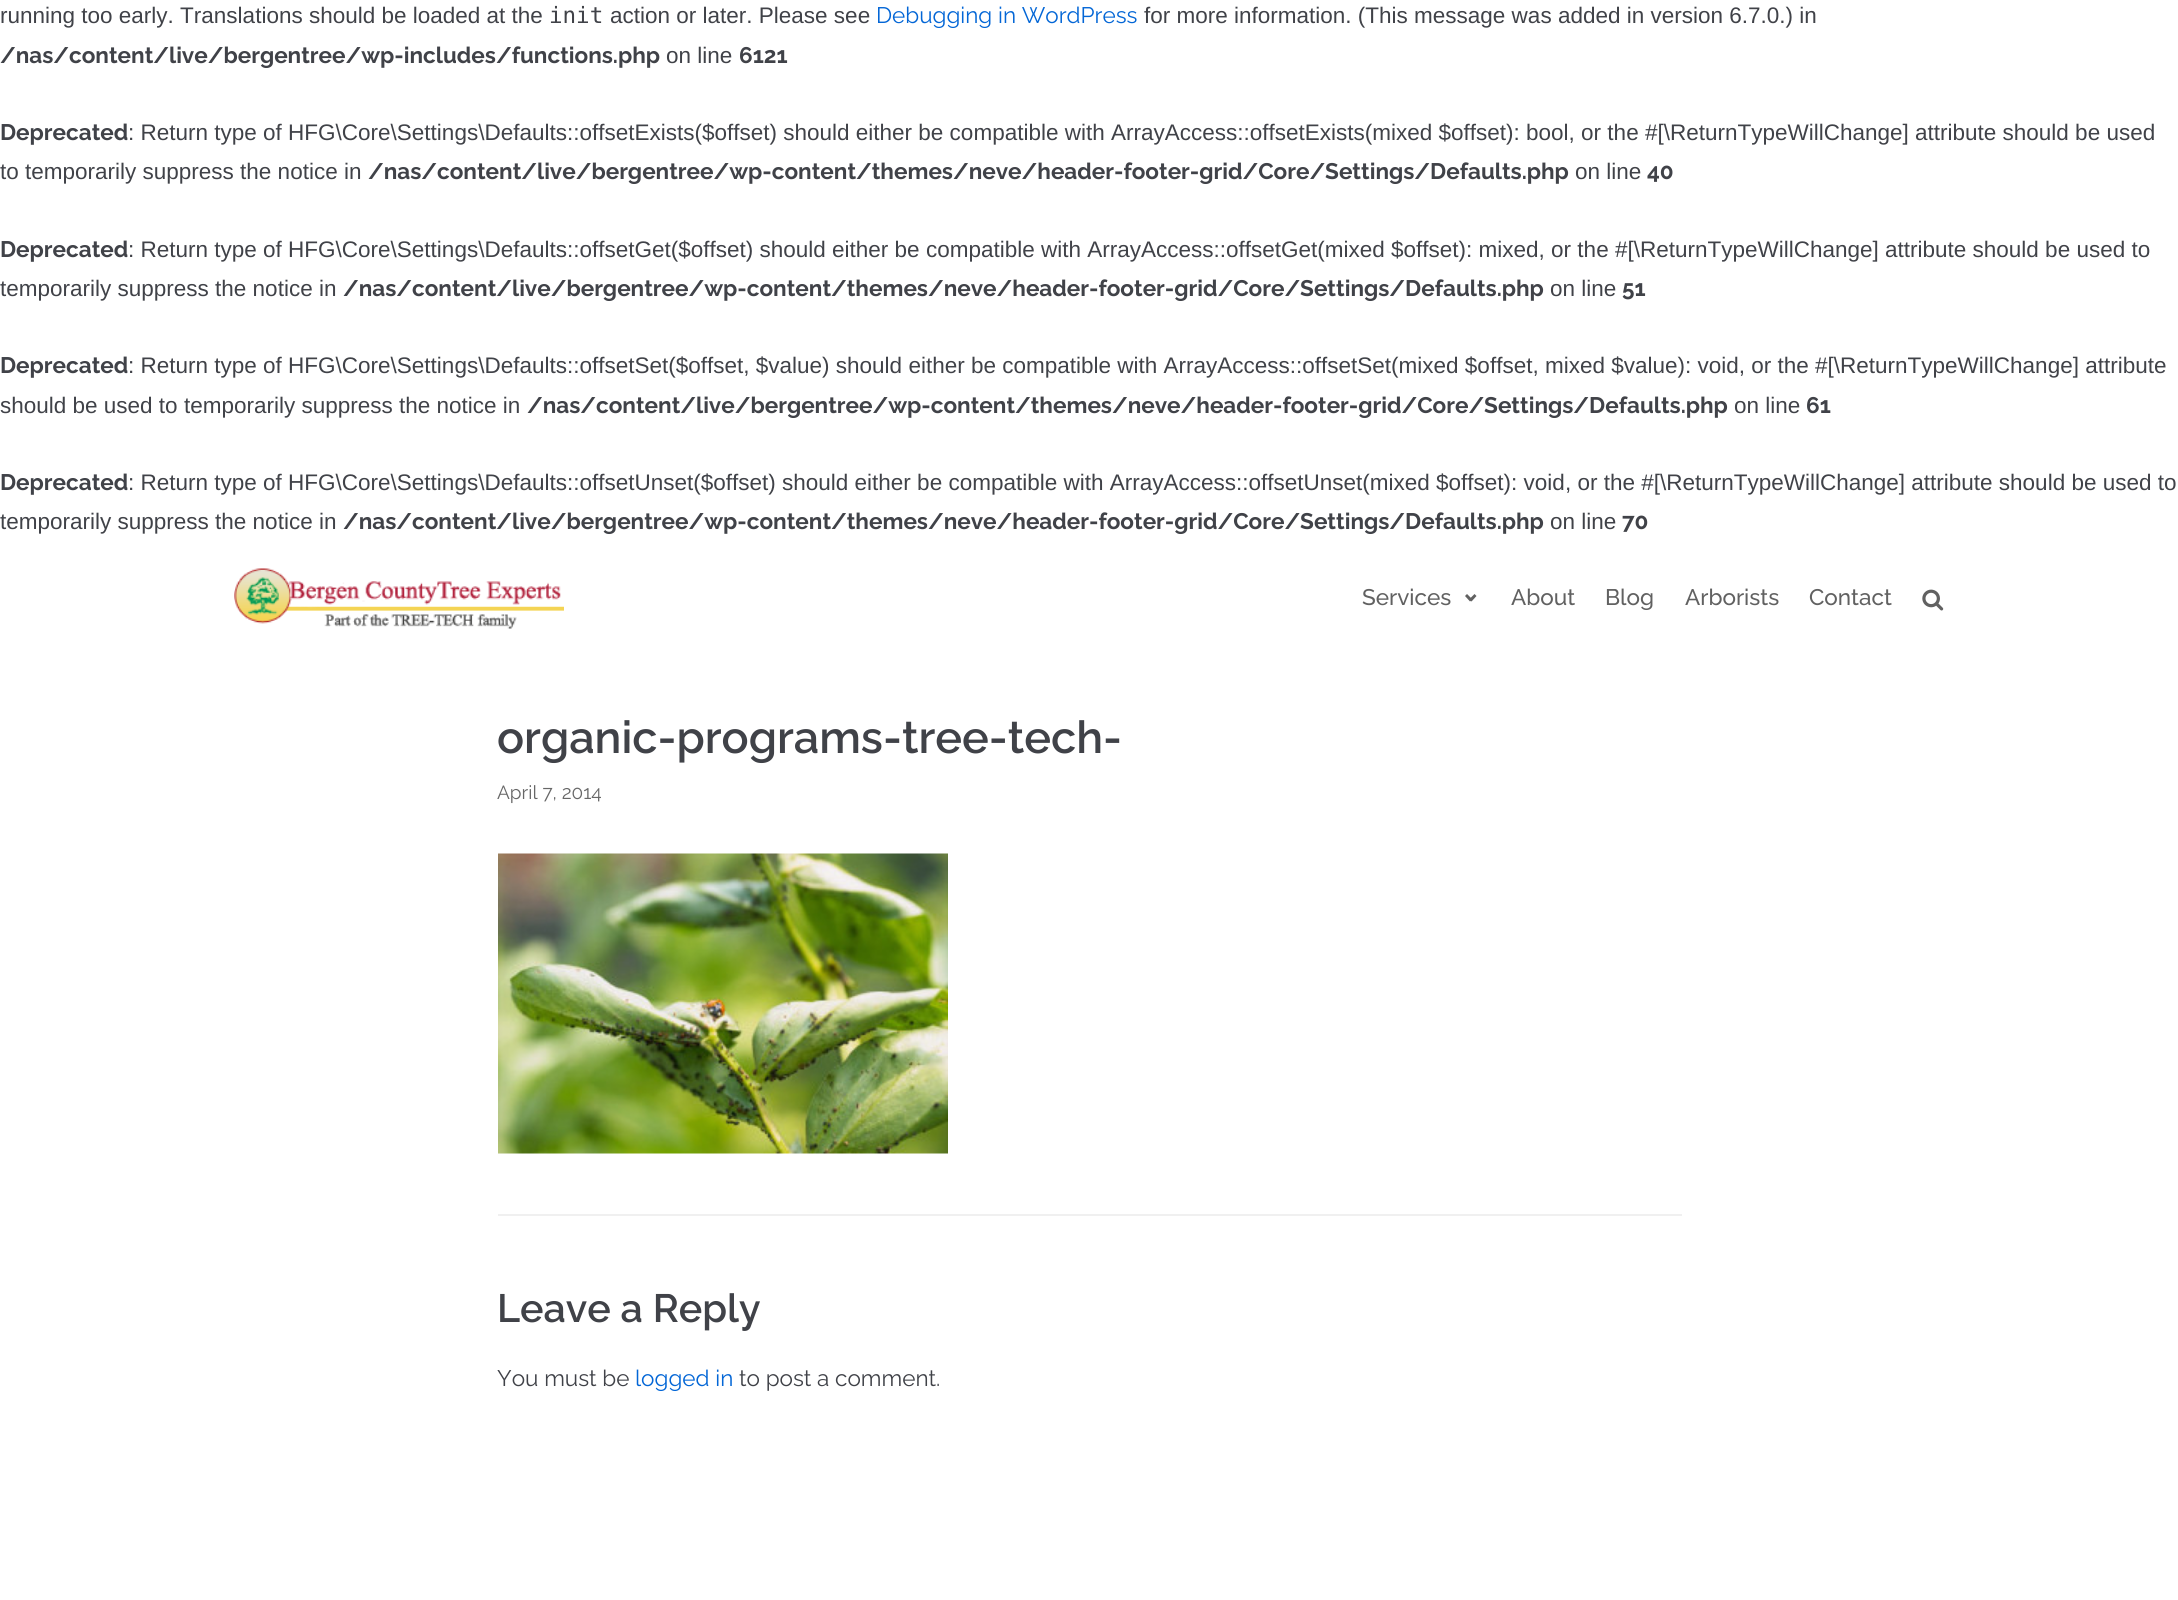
#include <cairo.h>
#include <math.h>
#include <stddef.h>


static void picture(cairo_t *cr, const char *path, double x, double y, double w, double h) {
    cairo_surface_t *image = cairo_image_surface_create_from_png(path);
    cairo_save(cr);
    cairo_set_source_surface(cr, image, x, y);
    cairo_rectangle(cr, x, y, w, h);
    cairo_fill(cr);
    cairo_restore(cr);
    cairo_surface_destroy(image);
}

int main(void) {
    cairo_surface_t *surface = cairo_image_surface_create(CAIRO_FORMAT_RGB24, 2178, 1600);
    cairo_t *cr = cairo_create(surface);
    cairo_font_options_t *options = cairo_font_options_create();
    cairo_font_options_set_hint_metrics(options, CAIRO_HINT_METRICS_OFF);
    cairo_font_options_set_hint_style(options, CAIRO_HINT_STYLE_NONE);
    cairo_set_font_options(cr, options);
    cairo_set_miter_limit(cr, 4);
    cairo_set_source_rgb(cr, 1, 1, 1);
    cairo_paint(cr);
    cairo_select_font_face(cr, "Liberation Sans", CAIRO_FONT_SLANT_NORMAL, CAIRO_FONT_WEIGHT_NORMAL);
    cairo_set_font_size(cr, 22.5);
    cairo_set_source_rgb(cr, 0.251, 0.259, 0.282);
    cairo_move_to(cr, 0, 23);
    cairo_show_text(cr, "running too early. Translations should be loaded at the");
    cairo_select_font_face(cr, "DejaVu Sans Mono", CAIRO_FONT_SLANT_NORMAL, CAIRO_FONT_WEIGHT_NORMAL);
    cairo_move_to(cr, 549, 23);
    cairo_show_text(cr, "init");
    cairo_select_font_face(cr, "Liberation Sans", CAIRO_FONT_SLANT_NORMAL, CAIRO_FONT_WEIGHT_NORMAL);
    cairo_move_to(cr, 610, 23);
    cairo_show_text(cr, "action or later. Please see");
    cairo_select_font_face(cr, "Raleway", CAIRO_FONT_SLANT_NORMAL, CAIRO_FONT_WEIGHT_NORMAL);
    cairo_set_source_rgb(cr, 0.012, 0.4, 0.839);
    cairo_move_to(cr, 876, 23);
    cairo_show_text(cr, "Debugging in WordPress");
    cairo_select_font_face(cr, "Liberation Sans", CAIRO_FONT_SLANT_NORMAL, CAIRO_FONT_WEIGHT_NORMAL);
    cairo_set_source_rgb(cr, 0.251, 0.259, 0.282);
    cairo_move_to(cr, 1144, 23);
    cairo_show_text(cr, "for more information. (This message was added in version 6.7.0.) in");
    cairo_select_font_face(cr, "Raleway", CAIRO_FONT_SLANT_NORMAL, CAIRO_FONT_WEIGHT_BOLD);
    cairo_move_to(cr, 0, 63);
    cairo_show_text(cr, "/nas/content/live/bergentree/wp-includes/functions.php");
    cairo_select_font_face(cr, "Liberation Sans", CAIRO_FONT_SLANT_NORMAL, CAIRO_FONT_WEIGHT_NORMAL);
    cairo_move_to(cr, 666, 63);
    cairo_show_text(cr, "on line");
    cairo_select_font_face(cr, "Raleway", CAIRO_FONT_SLANT_NORMAL, CAIRO_FONT_WEIGHT_BOLD);
    cairo_move_to(cr, 739, 63);
    cairo_show_text(cr, "6121");
    cairo_move_to(cr, 0, 140);
    cairo_show_text(cr, "Deprecated");
    cairo_select_font_face(cr, "Liberation Sans", CAIRO_FONT_SLANT_NORMAL, CAIRO_FONT_WEIGHT_NORMAL);
    cairo_move_to(cr, 128, 140);
    cairo_show_text(cr, ": Return type of HFG\\Core\\Settings\\Defaults::offsetExists($offset) should either be compatible with ArrayAccess::offsetExists(mixed $offset): bool, or the #[\\ReturnTypeWillChange] attribute should be used");
    cairo_move_to(cr, 0, 179);
    cairo_show_text(cr, "to temporarily suppress the notice in");
    cairo_select_font_face(cr, "Raleway", CAIRO_FONT_SLANT_NORMAL, CAIRO_FONT_WEIGHT_BOLD);
    cairo_move_to(cr, 368, 179);
    cairo_show_text(cr, "/nas/content/live/bergentree/wp-content/themes/neve/header-footer-grid/Core/Settings/Defaults.php");
    cairo_select_font_face(cr, "Liberation Sans", CAIRO_FONT_SLANT_NORMAL, CAIRO_FONT_WEIGHT_NORMAL);
    cairo_move_to(cr, 1575, 179);
    cairo_show_text(cr, "on line");
    cairo_select_font_face(cr, "Raleway", CAIRO_FONT_SLANT_NORMAL, CAIRO_FONT_WEIGHT_BOLD);
    cairo_move_to(cr, 1647, 179);
    cairo_show_text(cr, "40");
    cairo_move_to(cr, 0, 257);
    cairo_show_text(cr, "Deprecated");
    cairo_select_font_face(cr, "Liberation Sans", CAIRO_FONT_SLANT_NORMAL, CAIRO_FONT_WEIGHT_NORMAL);
    cairo_move_to(cr, 128, 257);
    cairo_show_text(cr, ": Return type of HFG\\Core\\Settings\\Defaults::offsetGet($offset) should either be compatible with ArrayAccess::offsetGet(mixed $offset): mixed, or the #[\\ReturnTypeWillChange] attribute should be used to");
    cairo_move_to(cr, 0, 296);
    cairo_show_text(cr, "temporarily suppress the notice in");
    cairo_select_font_face(cr, "Raleway", CAIRO_FONT_SLANT_NORMAL, CAIRO_FONT_WEIGHT_BOLD);
    cairo_move_to(cr, 343, 296);
    cairo_show_text(cr, "/nas/content/live/bergentree/wp-content/themes/neve/header-footer-grid/Core/Settings/Defaults.php");
    cairo_select_font_face(cr, "Liberation Sans", CAIRO_FONT_SLANT_NORMAL, CAIRO_FONT_WEIGHT_NORMAL);
    cairo_move_to(cr, 1550, 296);
    cairo_show_text(cr, "on line");
    cairo_select_font_face(cr, "Raleway", CAIRO_FONT_SLANT_NORMAL, CAIRO_FONT_WEIGHT_BOLD);
    cairo_move_to(cr, 1622, 296);
    cairo_show_text(cr, "51");
    cairo_move_to(cr, 0, 373);
    cairo_show_text(cr, "Deprecated");
    cairo_select_font_face(cr, "Liberation Sans", CAIRO_FONT_SLANT_NORMAL, CAIRO_FONT_WEIGHT_NORMAL);
    cairo_move_to(cr, 128, 373);
    cairo_show_text(cr, ": Return type of HFG\\Core\\Settings\\Defaults::offsetSet($offset, $value) should either be compatible with ArrayAccess::offsetSet(mixed $offset, mixed $value): void, or the #[\\ReturnTypeWillChange] attribute");
    cairo_move_to(cr, 0, 413);
    cairo_show_text(cr, "should be used to temporarily suppress the notice in");
    cairo_select_font_face(cr, "Raleway", CAIRO_FONT_SLANT_NORMAL, CAIRO_FONT_WEIGHT_BOLD);
    cairo_move_to(cr, 527, 413);
    cairo_show_text(cr, "/nas/content/live/bergentree/wp-content/themes/neve/header-footer-grid/Core/Settings/Defaults.php");
    cairo_select_font_face(cr, "Liberation Sans", CAIRO_FONT_SLANT_NORMAL, CAIRO_FONT_WEIGHT_NORMAL);
    cairo_move_to(cr, 1734, 413);
    cairo_show_text(cr, "on line");
    cairo_select_font_face(cr, "Raleway", CAIRO_FONT_SLANT_NORMAL, CAIRO_FONT_WEIGHT_BOLD);
    cairo_move_to(cr, 1806, 413);
    cairo_show_text(cr, "61");
    cairo_move_to(cr, 0, 490);
    cairo_show_text(cr, "Deprecated");
    cairo_select_font_face(cr, "Liberation Sans", CAIRO_FONT_SLANT_NORMAL, CAIRO_FONT_WEIGHT_NORMAL);
    cairo_move_to(cr, 128, 490);
    cairo_show_text(cr, ": Return type of HFG\\Core\\Settings\\Defaults::offsetUnset($offset) should either be compatible with ArrayAccess::offsetUnset(mixed $offset): void, or the #[\\ReturnTypeWillChange] attribute should be used to");
    cairo_move_to(cr, 0, 529);
    cairo_show_text(cr, "temporarily suppress the notice in");
    cairo_select_font_face(cr, "Raleway", CAIRO_FONT_SLANT_NORMAL, CAIRO_FONT_WEIGHT_BOLD);
    cairo_move_to(cr, 343, 529);
    cairo_show_text(cr, "/nas/content/live/bergentree/wp-content/themes/neve/header-footer-grid/Core/Settings/Defaults.php");
    cairo_select_font_face(cr, "Liberation Sans", CAIRO_FONT_SLANT_NORMAL, CAIRO_FONT_WEIGHT_NORMAL);
    cairo_move_to(cr, 1550, 529);
    cairo_show_text(cr, "on line");
    cairo_select_font_face(cr, "Raleway", CAIRO_FONT_SLANT_NORMAL, CAIRO_FONT_WEIGHT_BOLD);
    cairo_move_to(cr, 1622, 529);
    cairo_show_text(cr, "70");
    picture(cr, "img1.png", 234, 568, 330, 61);
    cairo_select_font_face(cr, "Raleway Medium", CAIRO_FONT_SLANT_NORMAL, CAIRO_FONT_WEIGHT_NORMAL);
    cairo_set_source_rgb(cr, 0.38, 0.38, 0.38);
    cairo_move_to(cr, 1362, 605);
    cairo_show_text(cr, "Services");
    cairo_new_path(cr);
    cairo_move_to(cr, 1476.5, 596);
    cairo_line_to(cr, 1471.5, 601.5);
    cairo_line_to(cr, 1469, 599.5);
    cairo_line_to(cr, 1474.5, 594);
    cairo_close_path(cr);
    cairo_fill(cr);
    cairo_new_path(cr);
    cairo_move_to(cr, 1472.5, 599.5);
    cairo_line_to(cr, 1470, 601.5);
    cairo_line_to(cr, 1465, 596);
    cairo_line_to(cr, 1467, 594);
    cairo_close_path(cr);
    cairo_fill(cr);
    cairo_move_to(cr, 1511, 605);
    cairo_show_text(cr, "About");
    cairo_move_to(cr, 1605, 605);
    cairo_show_text(cr, "Blog");
    cairo_move_to(cr, 1685, 605);
    cairo_show_text(cr, "Arborists");
    cairo_move_to(cr, 1809, 605);
    cairo_show_text(cr, "Contact");
    picture(cr, "img2.png", 1922, 589, 22, 22);
    cairo_select_font_face(cr, "Raleway SemiBold", CAIRO_FONT_SLANT_NORMAL, CAIRO_FONT_WEIGHT_NORMAL);
    cairo_set_font_size(cr, 45);
    cairo_set_source_rgb(cr, 0.251, 0.259, 0.282);
    cairo_move_to(cr, 497, 753);
    cairo_show_text(cr, "organic-programs-tree-tech-");
    cairo_select_font_face(cr, "Raleway", CAIRO_FONT_SLANT_NORMAL, CAIRO_FONT_WEIGHT_NORMAL);
    cairo_set_font_size(cr, 19);
    cairo_set_source_rgb(cr, 0.404, 0.404, 0.404);
    cairo_move_to(cr, 497, 799);
    cairo_show_text(cr, "April 7, 2014");
    picture(cr, "img3.png", 498, 853, 450, 301);
    cairo_set_source_rgb(cr, 0.941, 0.941, 0.941);
    cairo_rectangle(cr, 498, 1214, 1184, 2);
    cairo_fill(cr);
    cairo_select_font_face(cr, "Raleway SemiBold", CAIRO_FONT_SLANT_NORMAL, CAIRO_FONT_WEIGHT_NORMAL);
    cairo_set_font_size(cr, 39.5);
    cairo_set_source_rgb(cr, 0.251, 0.259, 0.282);
    cairo_move_to(cr, 497, 1322);
    cairo_show_text(cr, "Leave a Reply");
    cairo_select_font_face(cr, "Raleway", CAIRO_FONT_SLANT_NORMAL, CAIRO_FONT_WEIGHT_NORMAL);
    cairo_set_font_size(cr, 22.5);
    cairo_move_to(cr, 497, 1386);
    cairo_show_text(cr, "You must be");
    cairo_set_source_rgb(cr, 0.012, 0.4, 0.839);
    cairo_move_to(cr, 635, 1386);
    cairo_show_text(cr, "logged in");
    cairo_set_source_rgb(cr, 0.251, 0.259, 0.282);
    cairo_move_to(cr, 739, 1386);
    cairo_show_text(cr, "to post a comment.");
    cairo_surface_write_to_png(surface, "page.png");
    cairo_font_options_destroy(options);
    cairo_destroy(cr);
    cairo_surface_destroy(surface);
    return 0;
}
